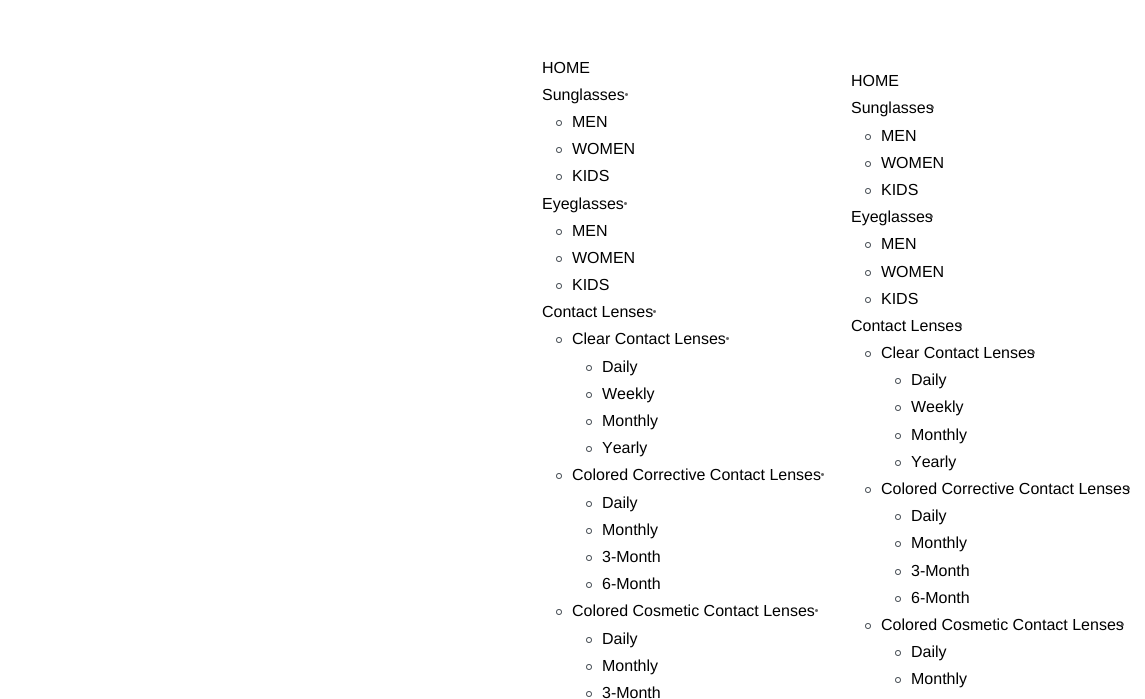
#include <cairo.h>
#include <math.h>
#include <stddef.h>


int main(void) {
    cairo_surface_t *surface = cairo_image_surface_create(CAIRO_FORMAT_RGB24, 1145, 699);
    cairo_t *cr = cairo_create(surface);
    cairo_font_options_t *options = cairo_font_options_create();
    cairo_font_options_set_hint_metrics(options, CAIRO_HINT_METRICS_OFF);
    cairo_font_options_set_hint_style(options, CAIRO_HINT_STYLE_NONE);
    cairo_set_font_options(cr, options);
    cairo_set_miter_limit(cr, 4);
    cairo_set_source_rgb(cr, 1, 1, 1);
    cairo_paint(cr);
    cairo_select_font_face(cr, "Liberation Sans", CAIRO_FONT_SLANT_NORMAL, CAIRO_FONT_WEIGHT_NORMAL);
    cairo_set_font_size(cr, 16);
    cairo_set_source_rgb(cr, 0, 0, 0);
    cairo_move_to(cr, 542, 73);
    cairo_show_text(cr, "HOME");
    cairo_move_to(cr, 542, 100);
    cairo_show_text(cr, "Sunglasses");
    cairo_set_source_rgb(cr, 0.4, 0.4, 0.4);
    cairo_new_path(cr);
    cairo_arc(cr, 626.5, 94.5, 1.5, 0, 2 * M_PI);
    cairo_fill(cr);
    cairo_arc(cr, 559, 123, 2.5, 0, 2 * M_PI);
    cairo_set_source_rgb(cr, 0.282, 0.31, 0.337);
    cairo_set_line_width(cr, 1);
    cairo_stroke(cr);
    cairo_set_source_rgb(cr, 0, 0, 0);
    cairo_move_to(cr, 572, 127);
    cairo_show_text(cr, "MEN");
    cairo_new_path(cr);
    cairo_arc(cr, 559, 150, 2.5, 0, 2 * M_PI);
    cairo_set_source_rgb(cr, 0.282, 0.31, 0.337);
    cairo_stroke(cr);
    cairo_set_source_rgb(cr, 0, 0, 0);
    cairo_move_to(cr, 572, 154);
    cairo_show_text(cr, "WOMEN");
    cairo_new_path(cr);
    cairo_arc(cr, 559, 177, 2.5, 0, 2 * M_PI);
    cairo_set_source_rgb(cr, 0.282, 0.31, 0.337);
    cairo_stroke(cr);
    cairo_set_source_rgb(cr, 0, 0, 0);
    cairo_move_to(cr, 572, 181);
    cairo_show_text(cr, "KIDS");
    cairo_move_to(cr, 542, 209);
    cairo_show_text(cr, "Eyeglasses");
    cairo_set_source_rgb(cr, 0.4, 0.4, 0.4);
    cairo_new_path(cr);
    cairo_arc(cr, 625.5, 203.5, 1.5, 0, 2 * M_PI);
    cairo_fill(cr);
    cairo_arc(cr, 559, 232, 2.5, 0, 2 * M_PI);
    cairo_set_source_rgb(cr, 0.282, 0.31, 0.337);
    cairo_stroke(cr);
    cairo_set_source_rgb(cr, 0, 0, 0);
    cairo_move_to(cr, 572, 236);
    cairo_show_text(cr, "MEN");
    cairo_new_path(cr);
    cairo_arc(cr, 559, 259, 2.5, 0, 2 * M_PI);
    cairo_set_source_rgb(cr, 0.282, 0.31, 0.337);
    cairo_stroke(cr);
    cairo_set_source_rgb(cr, 0, 0, 0);
    cairo_move_to(cr, 572, 263);
    cairo_show_text(cr, "WOMEN");
    cairo_new_path(cr);
    cairo_arc(cr, 559, 286, 2.5, 0, 2 * M_PI);
    cairo_set_source_rgb(cr, 0.282, 0.31, 0.337);
    cairo_stroke(cr);
    cairo_set_source_rgb(cr, 0, 0, 0);
    cairo_move_to(cr, 572, 290);
    cairo_show_text(cr, "KIDS");
    cairo_move_to(cr, 542, 317);
    cairo_show_text(cr, "Contact Lenses");
    cairo_set_source_rgb(cr, 0.4, 0.4, 0.4);
    cairo_new_path(cr);
    cairo_arc(cr, 654.5, 311.5, 1.5, 0, 2 * M_PI);
    cairo_fill(cr);
    cairo_arc(cr, 559, 340, 2.5, 0, 2 * M_PI);
    cairo_set_source_rgb(cr, 0.282, 0.31, 0.337);
    cairo_stroke(cr);
    cairo_set_source_rgb(cr, 0, 0, 0);
    cairo_move_to(cr, 572, 344);
    cairo_show_text(cr, "Clear Contact Lenses");
    cairo_set_source_rgb(cr, 0.4, 0.4, 0.4);
    cairo_new_path(cr);
    cairo_arc(cr, 727.5, 338.5, 1.5, 0, 2 * M_PI);
    cairo_fill(cr);
    cairo_arc(cr, 589, 368, 2.5, 0, 2 * M_PI);
    cairo_set_source_rgb(cr, 0.282, 0.31, 0.337);
    cairo_stroke(cr);
    cairo_set_source_rgb(cr, 0, 0, 0);
    cairo_move_to(cr, 602, 372);
    cairo_show_text(cr, "Daily");
    cairo_new_path(cr);
    cairo_arc(cr, 589, 395, 2.5, 0, 2 * M_PI);
    cairo_set_source_rgb(cr, 0.282, 0.31, 0.337);
    cairo_stroke(cr);
    cairo_set_source_rgb(cr, 0, 0, 0);
    cairo_move_to(cr, 602, 399);
    cairo_show_text(cr, "Weekly");
    cairo_new_path(cr);
    cairo_arc(cr, 589, 422, 2.5, 0, 2 * M_PI);
    cairo_set_source_rgb(cr, 0.282, 0.31, 0.337);
    cairo_stroke(cr);
    cairo_set_source_rgb(cr, 0, 0, 0);
    cairo_move_to(cr, 602, 426);
    cairo_show_text(cr, "Monthly");
    cairo_new_path(cr);
    cairo_arc(cr, 589, 449, 2.5, 0, 2 * M_PI);
    cairo_set_source_rgb(cr, 0.282, 0.31, 0.337);
    cairo_stroke(cr);
    cairo_set_source_rgb(cr, 0, 0, 0);
    cairo_move_to(cr, 602, 453);
    cairo_show_text(cr, "Yearly");
    cairo_new_path(cr);
    cairo_arc(cr, 559, 476, 2.5, 0, 2 * M_PI);
    cairo_set_source_rgb(cr, 0.282, 0.31, 0.337);
    cairo_stroke(cr);
    cairo_set_source_rgb(cr, 0, 0, 0);
    cairo_move_to(cr, 572, 480);
    cairo_show_text(cr, "Colored Corrective Contact Lenses");
    cairo_set_source_rgb(cr, 0.4, 0.4, 0.4);
    cairo_new_path(cr);
    cairo_arc(cr, 822.5, 474.5, 1.5, 0, 2 * M_PI);
    cairo_fill(cr);
    cairo_arc(cr, 589, 504, 2.5, 0, 2 * M_PI);
    cairo_set_source_rgb(cr, 0.282, 0.31, 0.337);
    cairo_stroke(cr);
    cairo_set_source_rgb(cr, 0, 0, 0);
    cairo_move_to(cr, 602, 508);
    cairo_show_text(cr, "Daily");
    cairo_new_path(cr);
    cairo_arc(cr, 589, 531, 2.5, 0, 2 * M_PI);
    cairo_set_source_rgb(cr, 0.282, 0.31, 0.337);
    cairo_stroke(cr);
    cairo_set_source_rgb(cr, 0, 0, 0);
    cairo_move_to(cr, 602, 535);
    cairo_show_text(cr, "Monthly");
    cairo_new_path(cr);
    cairo_arc(cr, 589, 558, 2.5, 0, 2 * M_PI);
    cairo_set_source_rgb(cr, 0.282, 0.31, 0.337);
    cairo_stroke(cr);
    cairo_set_source_rgb(cr, 0, 0, 0);
    cairo_move_to(cr, 602, 562);
    cairo_show_text(cr, "3-Month");
    cairo_new_path(cr);
    cairo_arc(cr, 589, 585, 2.5, 0, 2 * M_PI);
    cairo_set_source_rgb(cr, 0.282, 0.31, 0.337);
    cairo_stroke(cr);
    cairo_set_source_rgb(cr, 0, 0, 0);
    cairo_move_to(cr, 602, 589);
    cairo_show_text(cr, "6-Month");
    cairo_new_path(cr);
    cairo_arc(cr, 559, 612, 2.5, 0, 2 * M_PI);
    cairo_set_source_rgb(cr, 0.282, 0.31, 0.337);
    cairo_stroke(cr);
    cairo_set_source_rgb(cr, 0, 0, 0);
    cairo_move_to(cr, 572, 616);
    cairo_show_text(cr, "Colored Cosmetic Contact Lenses");
    cairo_set_source_rgb(cr, 0.4, 0.4, 0.4);
    cairo_new_path(cr);
    cairo_arc(cr, 816.5, 610.5, 1.5, 0, 2 * M_PI);
    cairo_fill(cr);
    cairo_arc(cr, 589, 640, 2.5, 0, 2 * M_PI);
    cairo_set_source_rgb(cr, 0.282, 0.31, 0.337);
    cairo_stroke(cr);
    cairo_set_source_rgb(cr, 0, 0, 0);
    cairo_move_to(cr, 602, 644);
    cairo_show_text(cr, "Daily");
    cairo_new_path(cr);
    cairo_arc(cr, 589, 667, 2.5, 0, 2 * M_PI);
    cairo_set_source_rgb(cr, 0.282, 0.31, 0.337);
    cairo_stroke(cr);
    cairo_set_source_rgb(cr, 0, 0, 0);
    cairo_move_to(cr, 602, 671);
    cairo_show_text(cr, "Monthly");
    cairo_new_path(cr);
    cairo_arc(cr, 589, 694, 2.5, 0, 2 * M_PI);
    cairo_set_source_rgb(cr, 0.282, 0.31, 0.337);
    cairo_stroke(cr);
    cairo_set_source_rgb(cr, 0, 0, 0);
    cairo_move_to(cr, 602, 698);
    cairo_show_text(cr, "3-Month");
    cairo_move_to(cr, 851, 86);
    cairo_show_text(cr, "HOME");
    cairo_move_to(cr, 851, 113);
    cairo_show_text(cr, "Sunglasses");
    cairo_set_source_rgba(cr, 0, 0, 0, 0.6);
    cairo_new_path(cr);
    cairo_arc(cr, 932.5, 107.5, 1.5, 0, 2 * M_PI);
    cairo_fill(cr);
    cairo_arc(cr, 868, 137, 2.5, 0, 2 * M_PI);
    cairo_set_source_rgb(cr, 0.282, 0.31, 0.337);
    cairo_stroke(cr);
    cairo_set_source_rgb(cr, 0, 0, 0);
    cairo_move_to(cr, 881, 141);
    cairo_show_text(cr, "MEN");
    cairo_new_path(cr);
    cairo_arc(cr, 868, 164, 2.5, 0, 2 * M_PI);
    cairo_set_source_rgb(cr, 0.282, 0.31, 0.337);
    cairo_stroke(cr);
    cairo_set_source_rgb(cr, 0, 0, 0);
    cairo_move_to(cr, 881, 168);
    cairo_show_text(cr, "WOMEN");
    cairo_new_path(cr);
    cairo_arc(cr, 868, 191, 2.5, 0, 2 * M_PI);
    cairo_set_source_rgb(cr, 0.282, 0.31, 0.337);
    cairo_stroke(cr);
    cairo_set_source_rgb(cr, 0, 0, 0);
    cairo_move_to(cr, 881, 195);
    cairo_show_text(cr, "KIDS");
    cairo_move_to(cr, 851, 222);
    cairo_show_text(cr, "Eyeglasses");
    cairo_set_source_rgba(cr, 0, 0, 0, 0.6);
    cairo_new_path(cr);
    cairo_arc(cr, 931.5, 216.5, 1.5, 0, 2 * M_PI);
    cairo_fill(cr);
    cairo_arc(cr, 868, 245, 2.5, 0, 2 * M_PI);
    cairo_set_source_rgb(cr, 0.282, 0.31, 0.337);
    cairo_stroke(cr);
    cairo_set_source_rgb(cr, 0, 0, 0);
    cairo_move_to(cr, 881, 249);
    cairo_show_text(cr, "MEN");
    cairo_new_path(cr);
    cairo_arc(cr, 868, 273, 2.5, 0, 2 * M_PI);
    cairo_set_source_rgb(cr, 0.282, 0.31, 0.337);
    cairo_stroke(cr);
    cairo_set_source_rgb(cr, 0, 0, 0);
    cairo_move_to(cr, 881, 277);
    cairo_show_text(cr, "WOMEN");
    cairo_new_path(cr);
    cairo_arc(cr, 868, 300, 2.5, 0, 2 * M_PI);
    cairo_set_source_rgb(cr, 0.282, 0.31, 0.337);
    cairo_stroke(cr);
    cairo_set_source_rgb(cr, 0, 0, 0);
    cairo_move_to(cr, 881, 304);
    cairo_show_text(cr, "KIDS");
    cairo_move_to(cr, 851, 331);
    cairo_show_text(cr, "Contact Lenses");
    cairo_set_source_rgba(cr, 0, 0, 0, 0.6);
    cairo_new_path(cr);
    cairo_arc(cr, 960.5, 325.5, 1.5, 0, 2 * M_PI);
    cairo_fill(cr);
    cairo_arc(cr, 868, 354, 2.5, 0, 2 * M_PI);
    cairo_set_source_rgb(cr, 0.282, 0.31, 0.337);
    cairo_stroke(cr);
    cairo_set_source_rgb(cr, 0, 0, 0);
    cairo_move_to(cr, 881, 358);
    cairo_show_text(cr, "Clear Contact Lenses");
    cairo_set_source_rgba(cr, 0, 0, 0, 0.6);
    cairo_new_path(cr);
    cairo_arc(cr, 1033.5, 352.5, 1.5, 0, 2 * M_PI);
    cairo_fill(cr);
    cairo_arc(cr, 898, 381, 2.5, 0, 2 * M_PI);
    cairo_set_source_rgb(cr, 0.282, 0.31, 0.337);
    cairo_stroke(cr);
    cairo_set_source_rgb(cr, 0, 0, 0);
    cairo_move_to(cr, 911, 385);
    cairo_show_text(cr, "Daily");
    cairo_new_path(cr);
    cairo_arc(cr, 898, 408, 2.5, 0, 2 * M_PI);
    cairo_set_source_rgb(cr, 0.282, 0.31, 0.337);
    cairo_stroke(cr);
    cairo_set_source_rgb(cr, 0, 0, 0);
    cairo_move_to(cr, 911, 412);
    cairo_show_text(cr, "Weekly");
    cairo_new_path(cr);
    cairo_arc(cr, 898, 436, 2.5, 0, 2 * M_PI);
    cairo_set_source_rgb(cr, 0.282, 0.31, 0.337);
    cairo_stroke(cr);
    cairo_set_source_rgb(cr, 0, 0, 0);
    cairo_move_to(cr, 911, 440);
    cairo_show_text(cr, "Monthly");
    cairo_new_path(cr);
    cairo_arc(cr, 898, 463, 2.5, 0, 2 * M_PI);
    cairo_set_source_rgb(cr, 0.282, 0.31, 0.337);
    cairo_stroke(cr);
    cairo_set_source_rgb(cr, 0, 0, 0);
    cairo_move_to(cr, 911, 467);
    cairo_show_text(cr, "Yearly");
    cairo_new_path(cr);
    cairo_arc(cr, 868, 490, 2.5, 0, 2 * M_PI);
    cairo_set_source_rgb(cr, 0.282, 0.31, 0.337);
    cairo_stroke(cr);
    cairo_set_source_rgb(cr, 0, 0, 0);
    cairo_move_to(cr, 881, 494);
    cairo_show_text(cr, "Colored Corrective Contact Lenses");
    cairo_set_source_rgba(cr, 0, 0, 0, 0.6);
    cairo_new_path(cr);
    cairo_arc(cr, 1128.5, 488.5, 1.5, 0, 2 * M_PI);
    cairo_fill(cr);
    cairo_arc(cr, 898, 517, 2.5, 0, 2 * M_PI);
    cairo_set_source_rgb(cr, 0.282, 0.31, 0.337);
    cairo_stroke(cr);
    cairo_set_source_rgb(cr, 0, 0, 0);
    cairo_move_to(cr, 911, 521);
    cairo_show_text(cr, "Daily");
    cairo_new_path(cr);
    cairo_arc(cr, 898, 544, 2.5, 0, 2 * M_PI);
    cairo_set_source_rgb(cr, 0.282, 0.31, 0.337);
    cairo_stroke(cr);
    cairo_set_source_rgb(cr, 0, 0, 0);
    cairo_move_to(cr, 911, 548);
    cairo_show_text(cr, "Monthly");
    cairo_new_path(cr);
    cairo_arc(cr, 898, 572, 2.5, 0, 2 * M_PI);
    cairo_set_source_rgb(cr, 0.282, 0.31, 0.337);
    cairo_stroke(cr);
    cairo_set_source_rgb(cr, 0, 0, 0);
    cairo_move_to(cr, 911, 576);
    cairo_show_text(cr, "3-Month");
    cairo_new_path(cr);
    cairo_arc(cr, 898, 599, 2.5, 0, 2 * M_PI);
    cairo_set_source_rgb(cr, 0.282, 0.31, 0.337);
    cairo_stroke(cr);
    cairo_set_source_rgb(cr, 0, 0, 0);
    cairo_move_to(cr, 911, 603);
    cairo_show_text(cr, "6-Month");
    cairo_new_path(cr);
    cairo_arc(cr, 868, 626, 2.5, 0, 2 * M_PI);
    cairo_set_source_rgb(cr, 0.282, 0.31, 0.337);
    cairo_stroke(cr);
    cairo_set_source_rgb(cr, 0, 0, 0);
    cairo_move_to(cr, 881, 630);
    cairo_show_text(cr, "Colored Cosmetic Contact Lenses");
    cairo_set_source_rgba(cr, 0, 0, 0, 0.6);
    cairo_new_path(cr);
    cairo_arc(cr, 1122.5, 624.5, 1.5, 0, 2 * M_PI);
    cairo_fill(cr);
    cairo_arc(cr, 898, 653, 2.5, 0, 2 * M_PI);
    cairo_set_source_rgb(cr, 0.282, 0.31, 0.337);
    cairo_stroke(cr);
    cairo_set_source_rgb(cr, 0, 0, 0);
    cairo_move_to(cr, 911, 657);
    cairo_show_text(cr, "Daily");
    cairo_new_path(cr);
    cairo_arc(cr, 898, 680, 2.5, 0, 2 * M_PI);
    cairo_set_source_rgb(cr, 0.282, 0.31, 0.337);
    cairo_stroke(cr);
    cairo_set_source_rgb(cr, 0, 0, 0);
    cairo_move_to(cr, 911, 684);
    cairo_show_text(cr, "Monthly");
    cairo_surface_write_to_png(surface, "page.png");
    cairo_font_options_destroy(options);
    cairo_destroy(cr);
    cairo_surface_destroy(surface);
    return 0;
}
